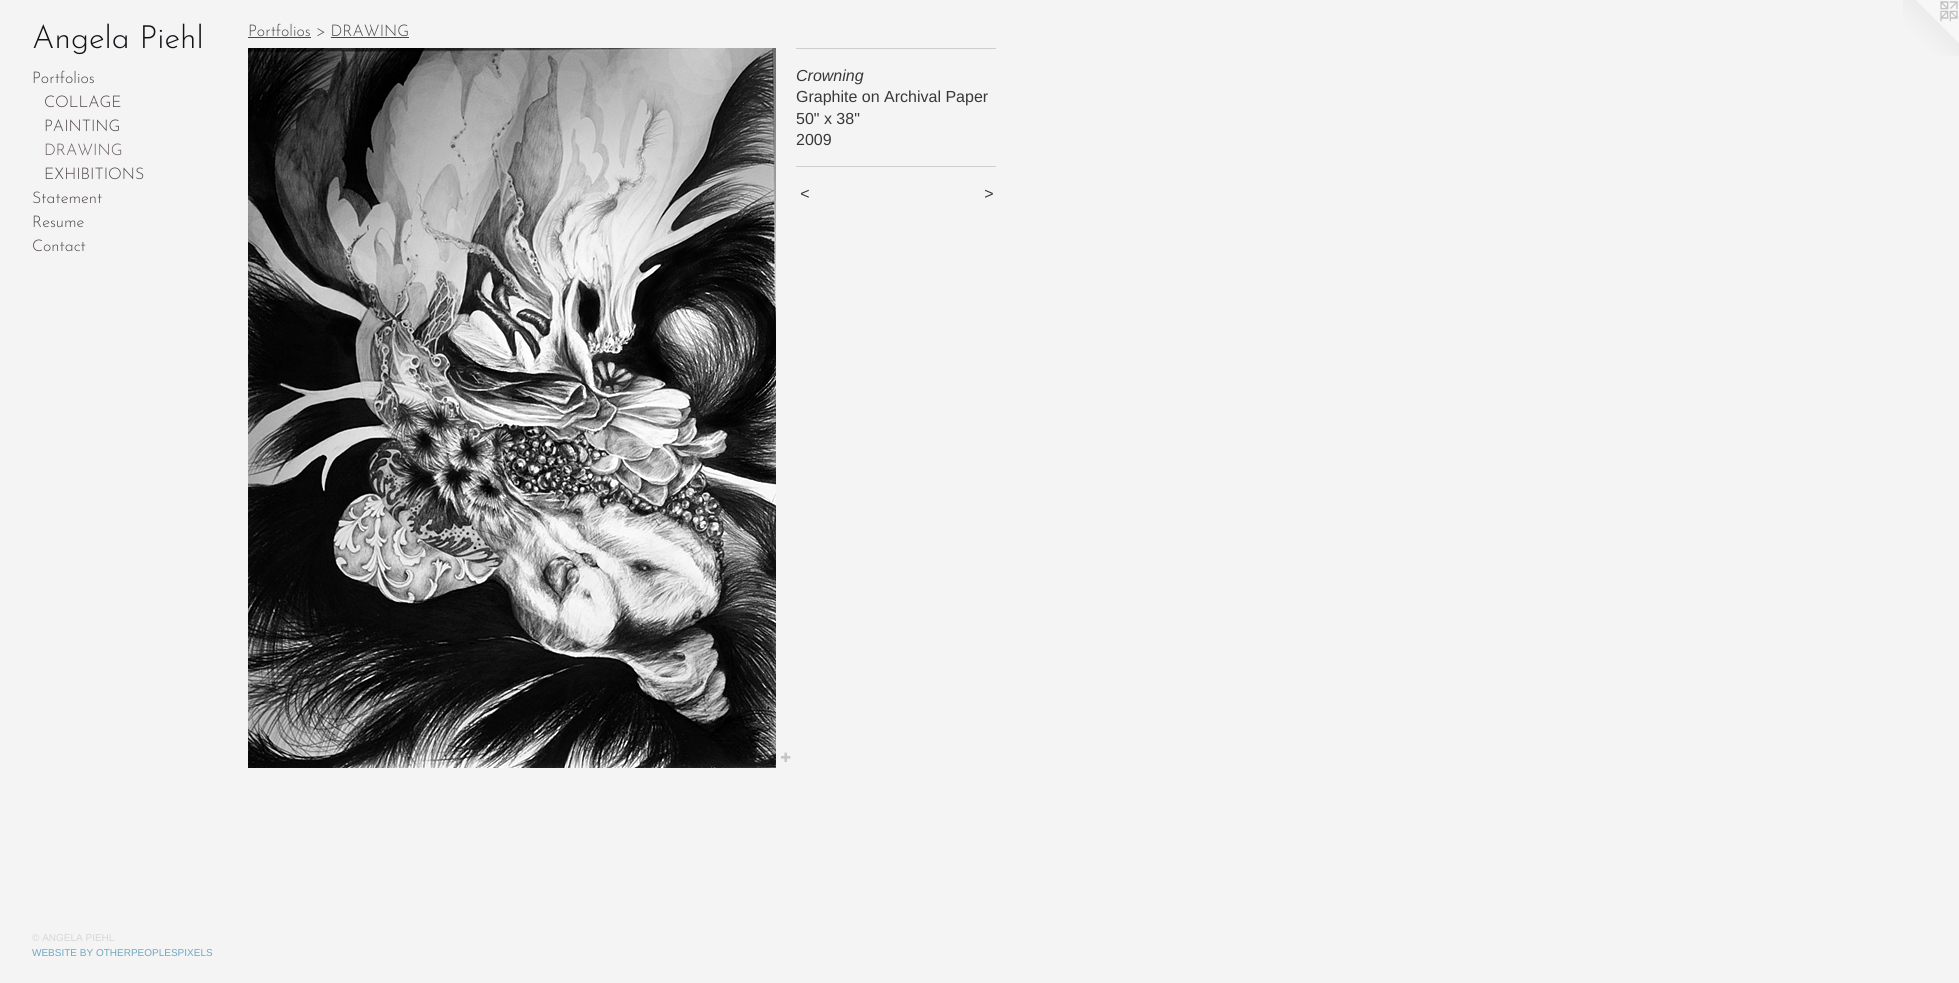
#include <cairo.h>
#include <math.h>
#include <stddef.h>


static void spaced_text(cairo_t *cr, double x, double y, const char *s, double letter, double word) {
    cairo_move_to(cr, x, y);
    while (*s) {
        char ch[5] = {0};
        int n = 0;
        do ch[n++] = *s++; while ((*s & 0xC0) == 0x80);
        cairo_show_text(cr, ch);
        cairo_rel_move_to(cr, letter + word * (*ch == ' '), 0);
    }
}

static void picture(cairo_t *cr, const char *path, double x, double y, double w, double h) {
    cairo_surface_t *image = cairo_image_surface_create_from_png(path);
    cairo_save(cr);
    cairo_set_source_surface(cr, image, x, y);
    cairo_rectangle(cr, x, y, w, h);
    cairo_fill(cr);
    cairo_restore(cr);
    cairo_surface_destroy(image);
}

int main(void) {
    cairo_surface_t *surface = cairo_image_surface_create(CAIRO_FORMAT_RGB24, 1959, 983);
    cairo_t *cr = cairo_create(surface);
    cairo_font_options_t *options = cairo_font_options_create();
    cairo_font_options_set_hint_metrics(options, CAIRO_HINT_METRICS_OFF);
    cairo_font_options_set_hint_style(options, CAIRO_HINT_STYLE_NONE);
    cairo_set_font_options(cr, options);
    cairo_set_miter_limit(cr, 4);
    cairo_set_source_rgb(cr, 0.957, 0.957, 0.957);
    cairo_paint(cr);
    cairo_select_font_face(cr, "Josefin Sans Thin", CAIRO_FONT_SLANT_NORMAL, CAIRO_FONT_WEIGHT_NORMAL);
    cairo_set_font_size(cr, 32);
    cairo_set_source_rgb(cr, 0.071, 0.078, 0.086);
    cairo_move_to(cr, 32, 48);
    cairo_show_text(cr, "Angela Piehl");
    cairo_set_font_size(cr, 16);
    cairo_set_source_rgb(cr, 0.306, 0.275, 0.275);
    cairo_move_to(cr, 32, 83);
    cairo_show_text(cr, "Portfolios");
    cairo_move_to(cr, 44, 107);
    cairo_show_text(cr, "COLLAGE");
    cairo_move_to(cr, 44, 131);
    cairo_show_text(cr, "PAINTING");
    cairo_set_source_rgb(cr, 0.412, 0.369, 0.369);
    cairo_move_to(cr, 44, 155);
    cairo_show_text(cr, "DRAWING");
    cairo_set_source_rgb(cr, 0.306, 0.275, 0.275);
    cairo_move_to(cr, 44, 179);
    cairo_show_text(cr, "EXHIBITIONS");
    cairo_move_to(cr, 32, 203);
    cairo_show_text(cr, "Statement");
    cairo_move_to(cr, 32, 227);
    cairo_show_text(cr, "Resume");
    cairo_move_to(cr, 32, 251);
    cairo_show_text(cr, "Contact");
    cairo_select_font_face(cr, "Liberation Sans", CAIRO_FONT_SLANT_NORMAL, CAIRO_FONT_WEIGHT_NORMAL);
    cairo_set_font_size(cr, 10);
    cairo_set_source_rgb(cr, 0.839, 0.839, 0.839);
    cairo_move_to(cr, 32, 941);
    cairo_show_text(cr, "© ANGELA PIEHL");
    cairo_set_source_rgb(cr, 0.439, 0.659, 0.753);
    cairo_move_to(cr, 32, 956);
    cairo_show_text(cr, "WEBSITE BY OTHERPEOPLESPIXELS");
    cairo_select_font_face(cr, "Josefin Sans Thin", CAIRO_FONT_SLANT_NORMAL, CAIRO_FONT_WEIGHT_NORMAL);
    cairo_set_font_size(cr, 16);
    cairo_set_source_rgb(cr, 0.306, 0.275, 0.275);
    cairo_move_to(cr, 248, 36);
    cairo_show_text(cr, "Portfolios > DRAWING");
    cairo_rectangle(cr, 248, 37, 63, 1);
    cairo_fill(cr);
    cairo_rectangle(cr, 331, 37, 78, 1);
    cairo_fill(cr);
    picture(cr, "img1.png", 248, 48, 528, 720);
    picture(cr, "img2.png", 781, 752, 10, 10);
    cairo_set_source_rgb(cr, 0.808, 0.808, 0.808);
    cairo_rectangle(cr, 796, 48, 200, 1);
    cairo_fill(cr);
    cairo_select_font_face(cr, "Liberation Sans", CAIRO_FONT_SLANT_ITALIC, CAIRO_FONT_WEIGHT_NORMAL);
    cairo_set_source_rgb(cr, 0.22, 0.22, 0.22);
    cairo_move_to(cr, 796, 81);
    cairo_show_text(cr, "Crowning");
    cairo_select_font_face(cr, "Liberation Sans", CAIRO_FONT_SLANT_NORMAL, CAIRO_FONT_WEIGHT_NORMAL);
    cairo_move_to(cr, 796, 102);
    cairo_show_text(cr, "Graphite on Archival Paper");
    cairo_move_to(cr, 796, 124);
    cairo_show_text(cr, "50\" x 38\"");
    cairo_move_to(cr, 796, 145);
    cairo_show_text(cr, "2009");
    cairo_set_source_rgb(cr, 0.808, 0.808, 0.808);
    cairo_rectangle(cr, 796, 166, 200, 1);
    cairo_fill(cr);
    cairo_select_font_face(cr, "Liberation Sans", CAIRO_FONT_SLANT_ITALIC, CAIRO_FONT_WEIGHT_NORMAL);
    cairo_set_source_rgb(cr, 0.22, 0.22, 0.22);
    spaced_text(cr, 800, 199, "<", 1, 0);
    spaced_text(cr, 984, 199, ">", 1, 0);
    picture(cr, "img3.png", 1903, 0, 56, 56);
    cairo_surface_write_to_png(surface, "page.png");
    cairo_font_options_destroy(options);
    cairo_destroy(cr);
    cairo_surface_destroy(surface);
    return 0;
}
